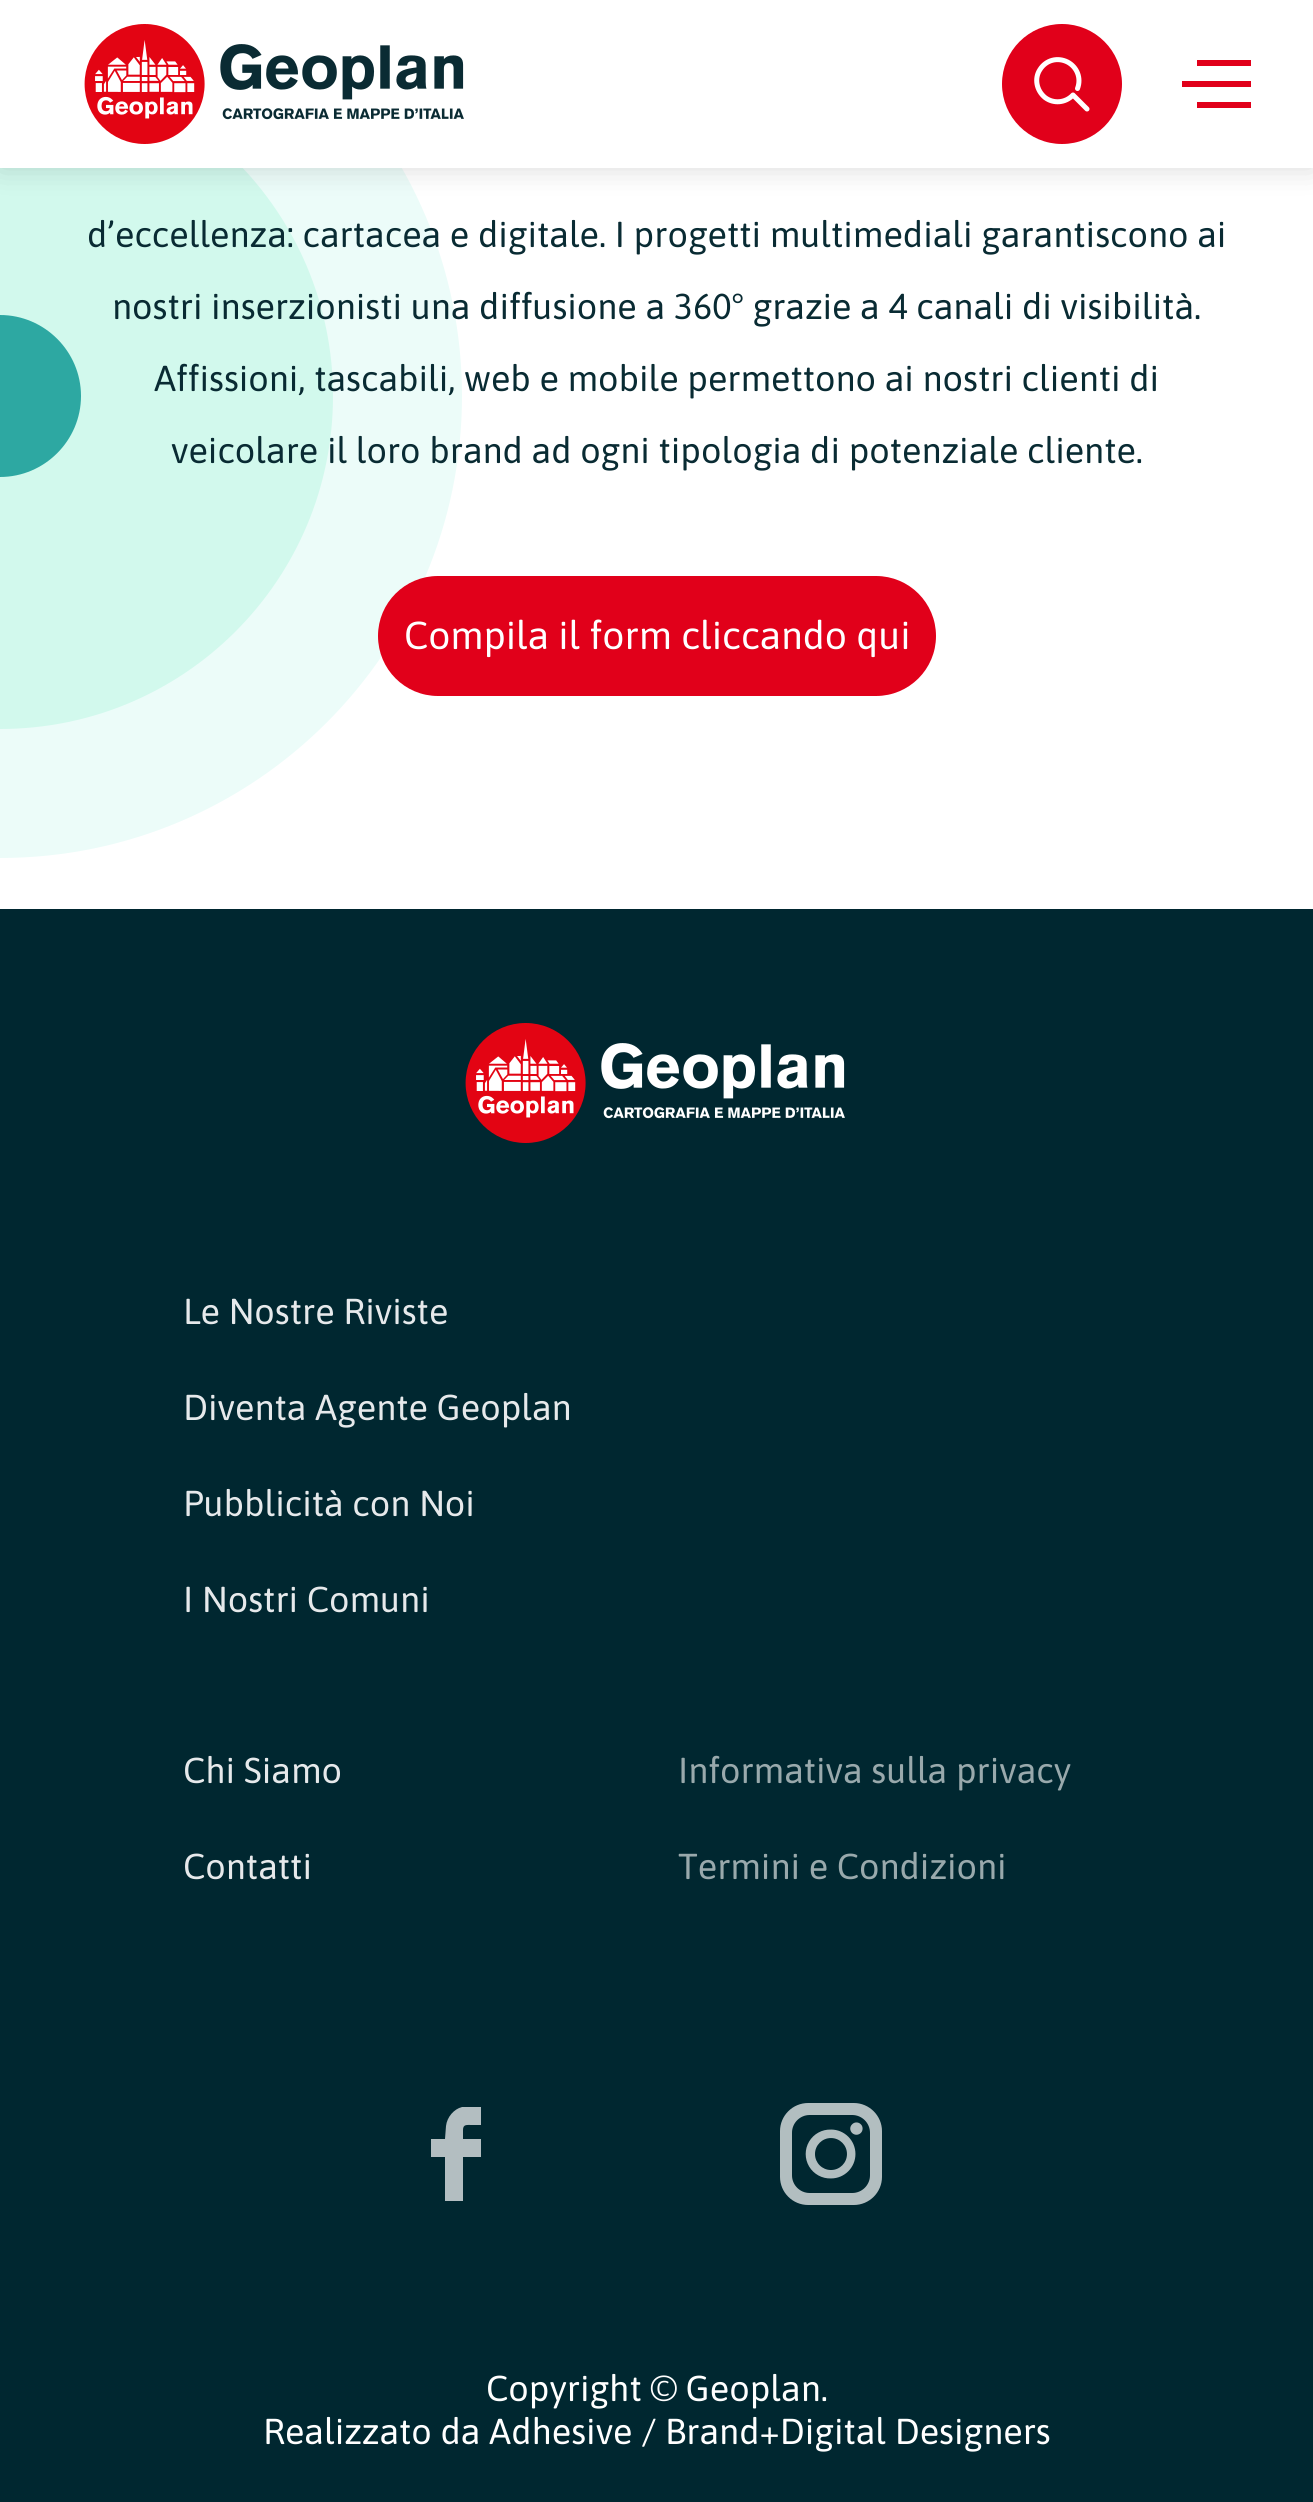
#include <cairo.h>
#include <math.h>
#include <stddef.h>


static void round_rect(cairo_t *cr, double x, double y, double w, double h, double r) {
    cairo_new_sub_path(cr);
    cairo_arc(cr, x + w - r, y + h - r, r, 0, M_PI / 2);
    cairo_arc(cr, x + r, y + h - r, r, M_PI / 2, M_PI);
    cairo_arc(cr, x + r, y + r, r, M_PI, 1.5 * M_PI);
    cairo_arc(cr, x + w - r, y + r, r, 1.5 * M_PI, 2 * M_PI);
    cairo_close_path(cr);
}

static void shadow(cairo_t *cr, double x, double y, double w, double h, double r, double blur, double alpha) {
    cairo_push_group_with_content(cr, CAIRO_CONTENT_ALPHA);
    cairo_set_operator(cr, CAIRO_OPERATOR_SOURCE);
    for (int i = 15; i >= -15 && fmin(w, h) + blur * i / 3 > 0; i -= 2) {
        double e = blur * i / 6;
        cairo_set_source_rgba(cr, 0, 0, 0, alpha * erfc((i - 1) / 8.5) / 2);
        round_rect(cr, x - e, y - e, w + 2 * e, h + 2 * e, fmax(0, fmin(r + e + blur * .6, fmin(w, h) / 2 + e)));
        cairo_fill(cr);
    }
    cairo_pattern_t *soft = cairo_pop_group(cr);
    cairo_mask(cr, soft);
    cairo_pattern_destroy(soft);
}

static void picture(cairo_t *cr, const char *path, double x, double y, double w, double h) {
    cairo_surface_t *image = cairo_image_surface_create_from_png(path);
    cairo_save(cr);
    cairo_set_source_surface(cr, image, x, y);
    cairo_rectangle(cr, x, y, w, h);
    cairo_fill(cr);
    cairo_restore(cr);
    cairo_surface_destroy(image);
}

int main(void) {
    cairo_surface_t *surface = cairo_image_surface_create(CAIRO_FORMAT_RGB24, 1313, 2502);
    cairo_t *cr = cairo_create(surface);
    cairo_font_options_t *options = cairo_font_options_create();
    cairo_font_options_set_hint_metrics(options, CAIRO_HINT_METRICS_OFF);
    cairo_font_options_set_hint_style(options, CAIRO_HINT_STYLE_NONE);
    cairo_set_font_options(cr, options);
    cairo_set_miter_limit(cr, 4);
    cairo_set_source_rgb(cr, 1, 1, 1);
    cairo_paint(cr);
    cairo_set_source_rgb(cr, 0.925, 0.988, 0.973);
    cairo_new_path(cr);
    cairo_move_to(cr, 0, -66);
    cairo_curve_to(cr, 255, -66, 462, 141, 462, 396);
    cairo_curve_to(cr, 462, 651, 255, 858, 0, 858);
    cairo_close_path(cr);
    cairo_fill(cr);
    cairo_set_source_rgb(cr, 0.824, 0.973, 0.929);
    cairo_new_path(cr);
    cairo_move_to(cr, 0, 63);
    cairo_curve_to(cr, 184, 63, 333, 212, 333, 396);
    cairo_curve_to(cr, 333, 580, 184, 729, 0, 729);
    cairo_close_path(cr);
    cairo_fill(cr);
    cairo_set_source_rgb(cr, 0, 0, 0);
    shadow(cr, 0, 0, 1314, 168, 0, 15, 0.15);
    cairo_set_source_rgb(cr, 1, 1, 1);
    cairo_rectangle(cr, 0, 0, 1313, 168);
    cairo_fill(cr);
    picture(cr, "img1.png", 84, 24, 380, 120);
    cairo_set_source_rgb(cr, 0.882, 0, 0.102);
    cairo_arc(cr, 1062, 84, 60, 0, 2 * M_PI);
    cairo_fill(cr);
    cairo_new_path(cr);
    cairo_move_to(cr, 1077.5, 88.5);
    cairo_curve_to(cr, 1081.5, 78, 1077, 67, 1067.5, 62);
    cairo_curve_to(cr, 1057.5, 57, 1046, 60, 1040, 69.5);
    cairo_curve_to(cr, 1034, 78.5, 1036.5, 90.5, 1045, 97.5);
    cairo_curve_to(cr, 1053.5, 104, 1065.5, 103, 1073, 95);
    cairo_move_to(cr, 1073, 95);
    cairo_line_to(cr, 1087, 109);
    cairo_set_source_rgb(cr, 1, 1, 1);
    cairo_set_line_width(cr, 5);
    cairo_set_line_cap(cr, CAIRO_LINE_CAP_ROUND);
    cairo_set_line_join(cr, CAIRO_LINE_JOIN_ROUND);
    cairo_stroke(cr);
    cairo_set_source_rgb(cr, 0.882, 0, 0.102);
    cairo_rectangle(cr, 1197, 60, 54, 6);
    cairo_fill(cr);
    cairo_rectangle(cr, 1182, 81, 69, 6);
    cairo_fill(cr);
    cairo_rectangle(cr, 1197, 102, 54, 6);
    cairo_fill(cr);
    cairo_set_source_rgb(cr, 0.176, 0.659, 0.635);
    cairo_new_path(cr);
    cairo_move_to(cr, 0, 315);
    cairo_curve_to(cr, 44.5, 315, 81, 351.5, 81, 396);
    cairo_curve_to(cr, 81, 440.5, 44.5, 477, 0, 477);
    cairo_close_path(cr);
    cairo_fill(cr);
    cairo_select_font_face(cr, "Asap", CAIRO_FONT_SLANT_NORMAL, CAIRO_FONT_WEIGHT_NORMAL);
    cairo_set_font_size(cr, 36);
    cairo_set_source_rgb(cr, 0.039, 0.169, 0.2);
    cairo_move_to(cr, 87, 247);
    cairo_show_text(cr, "d’eccellenza: cartacea e digitale. I progetti multimediali garantiscono ai");
    cairo_move_to(cr, 112, 319);
    cairo_show_text(cr, "nostri inserzionisti una diffusione a 360° grazie a 4 canali di visibilità.");
    cairo_move_to(cr, 154, 391);
    cairo_show_text(cr, "Affissioni, tascabili, web e mobile permettono ai nostri clienti di");
    cairo_move_to(cr, 171, 463);
    cairo_show_text(cr, "veicolare il loro brand ad ogni tipologia di potenziale cliente.");
    cairo_set_source_rgb(cr, 0.882, 0, 0.102);
    round_rect(cr, 378, 576, 558, 120, 60);
    cairo_fill(cr);
    cairo_set_font_size(cr, 39);
    cairo_set_source_rgb(cr, 1, 1, 1);
    cairo_move_to(cr, 404, 649);
    cairo_show_text(cr, "Compila il form cliccando qui");
    cairo_set_source_rgb(cr, 0, 0.153, 0.188);
    cairo_rectangle(cr, 0, 909, 1313, 1593);
    cairo_fill(cr);
    picture(cr, "img2.png", 465, 1023, 380, 120);
    cairo_set_font_size(cr, 36);
    cairo_set_source_rgb(cr, 0.902, 0.914, 0.918);
    cairo_move_to(cr, 183, 1324);
    cairo_show_text(cr, "Le Nostre Riviste");
    cairo_move_to(cr, 183, 1420);
    cairo_show_text(cr, "Diventa Agente Geoplan");
    cairo_move_to(cr, 183, 1516);
    cairo_show_text(cr, "Pubblicità con Noi");
    cairo_move_to(cr, 183, 1612);
    cairo_show_text(cr, "I Nostri Comuni");
    cairo_move_to(cr, 183, 1783);
    cairo_show_text(cr, "Chi Siamo");
    cairo_move_to(cr, 183, 1879);
    cairo_show_text(cr, "Contatti");
    cairo_set_source_rgb(cr, 0.6, 0.663, 0.675);
    cairo_move_to(cr, 678, 1783);
    cairo_show_text(cr, "Informativa sulla privacy");
    cairo_move_to(cr, 678, 1879);
    cairo_show_text(cr, "Termini e Condizioni");
    cairo_set_source_rgb(cr, 0.702, 0.745, 0.757);
    cairo_new_path(cr);
    cairo_move_to(cr, 463, 2130);
    cairo_line_to(cr, 463, 2139);
    cairo_line_to(cr, 481, 2139);
    cairo_line_to(cr, 481, 2157);
    cairo_line_to(cr, 463, 2157);
    cairo_line_to(cr, 463, 2201);
    cairo_line_to(cr, 445, 2201);
    cairo_line_to(cr, 445, 2157);
    cairo_line_to(cr, 431, 2157);
    cairo_line_to(cr, 431, 2139);
    cairo_line_to(cr, 445, 2139);
    cairo_line_to(cr, 446, 2126);
    cairo_curve_to(cr, 447, 2117, 454, 2109, 462, 2107);
    cairo_line_to(cr, 481, 2107);
    cairo_line_to(cr, 481, 2125);
    cairo_line_to(cr, 472, 2125);
    cairo_curve_to(cr, 467, 2125, 463, 2124, 463, 2130);
    cairo_close_path(cr);
    cairo_fill(cr);
    picture(cr, "img3.png", 780, 2103, 102, 102);
    cairo_set_source_rgb(cr, 1, 1, 1);
    cairo_move_to(cr, 486, 2401);
    cairo_show_text(cr, "Copyright © Geoplan.");
    cairo_move_to(cr, 263, 2444);
    cairo_show_text(cr, "Realizzato da Adhesive / Brand+Digital Designers");
    cairo_surface_write_to_png(surface, "page.png");
    cairo_font_options_destroy(options);
    cairo_destroy(cr);
    cairo_surface_destroy(surface);
    return 0;
}
